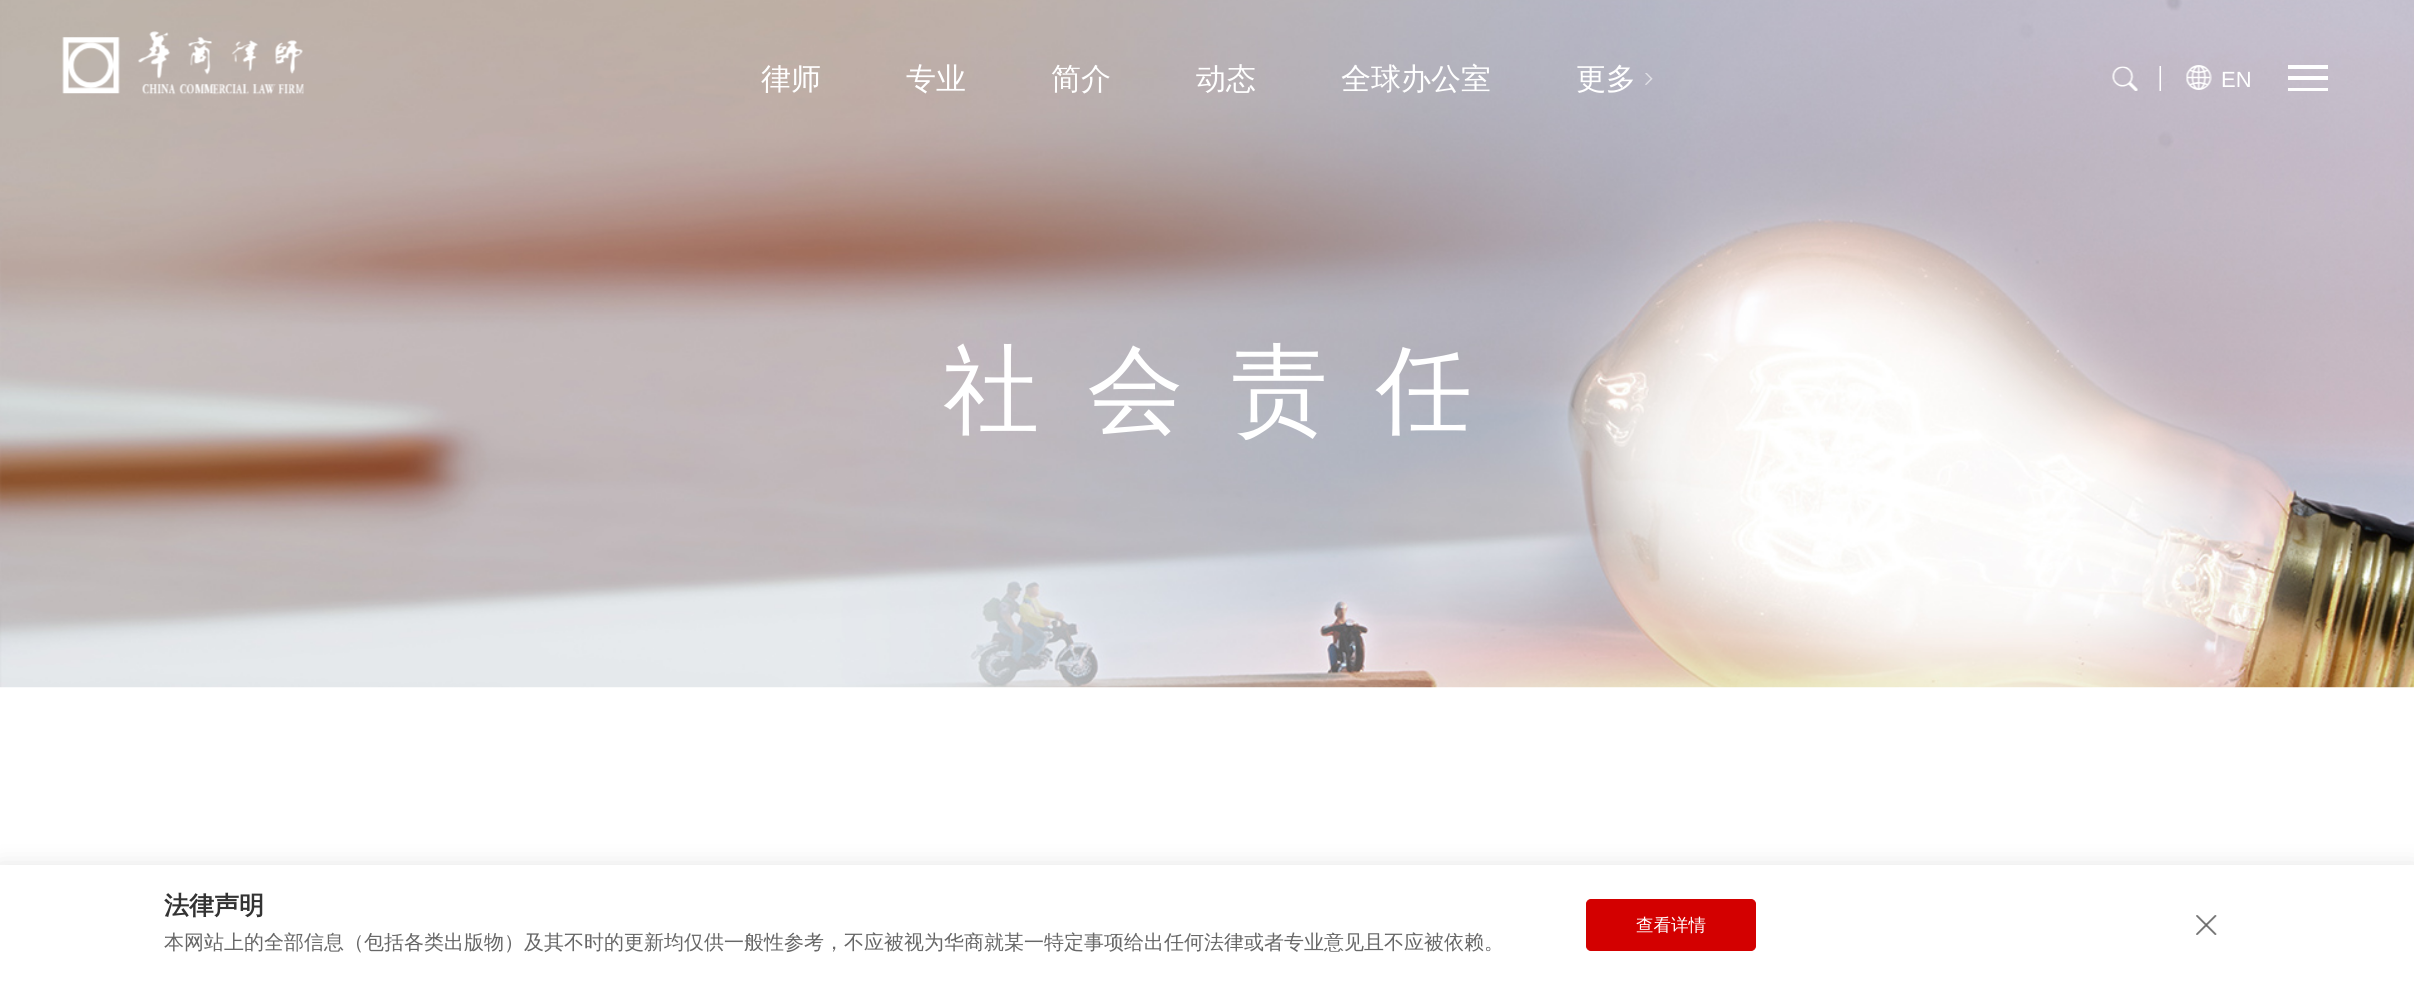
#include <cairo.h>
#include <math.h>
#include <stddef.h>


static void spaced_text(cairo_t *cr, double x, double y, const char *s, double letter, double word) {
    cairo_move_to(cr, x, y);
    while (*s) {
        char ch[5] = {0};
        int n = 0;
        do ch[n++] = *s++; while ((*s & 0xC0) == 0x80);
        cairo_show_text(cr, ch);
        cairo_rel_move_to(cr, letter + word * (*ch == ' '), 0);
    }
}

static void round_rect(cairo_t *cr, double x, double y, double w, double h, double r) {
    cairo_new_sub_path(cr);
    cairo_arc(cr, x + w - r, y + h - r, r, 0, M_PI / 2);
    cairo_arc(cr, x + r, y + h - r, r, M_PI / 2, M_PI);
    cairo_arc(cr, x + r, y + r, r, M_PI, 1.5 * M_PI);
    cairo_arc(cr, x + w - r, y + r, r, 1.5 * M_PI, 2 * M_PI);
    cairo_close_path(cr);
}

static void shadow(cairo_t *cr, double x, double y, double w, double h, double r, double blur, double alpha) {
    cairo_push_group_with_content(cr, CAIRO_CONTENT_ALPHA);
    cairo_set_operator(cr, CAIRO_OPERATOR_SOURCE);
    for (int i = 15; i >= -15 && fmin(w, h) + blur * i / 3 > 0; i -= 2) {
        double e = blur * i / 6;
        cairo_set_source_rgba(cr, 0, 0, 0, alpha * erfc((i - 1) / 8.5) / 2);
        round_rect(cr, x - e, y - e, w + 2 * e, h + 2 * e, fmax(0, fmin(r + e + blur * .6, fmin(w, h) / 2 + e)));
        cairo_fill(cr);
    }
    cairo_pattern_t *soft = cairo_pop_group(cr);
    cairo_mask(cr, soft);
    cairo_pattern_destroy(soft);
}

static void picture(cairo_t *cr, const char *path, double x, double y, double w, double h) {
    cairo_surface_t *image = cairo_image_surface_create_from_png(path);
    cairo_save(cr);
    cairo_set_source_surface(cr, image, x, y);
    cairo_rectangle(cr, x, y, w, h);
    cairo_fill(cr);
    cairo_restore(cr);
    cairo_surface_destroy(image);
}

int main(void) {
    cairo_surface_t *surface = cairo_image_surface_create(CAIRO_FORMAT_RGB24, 2414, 984);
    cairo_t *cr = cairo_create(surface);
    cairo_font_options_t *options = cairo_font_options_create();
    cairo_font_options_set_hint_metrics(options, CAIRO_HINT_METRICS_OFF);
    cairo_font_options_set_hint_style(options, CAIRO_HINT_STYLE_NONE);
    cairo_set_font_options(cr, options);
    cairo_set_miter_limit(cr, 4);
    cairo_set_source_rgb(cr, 1, 1, 1);
    cairo_paint(cr);
    picture(cr, "img5.png", 0, 0, 2414, 688);
    picture(cr, "img1.png", 62, 31, 242, 64);
    cairo_select_font_face(cr, "WenQuanYi Zen Hei Medium", CAIRO_FONT_SLANT_NORMAL, CAIRO_FONT_WEIGHT_NORMAL);
    cairo_set_font_size(cr, 30);
    cairo_set_source_rgb(cr, 1, 1, 1);
    cairo_move_to(cr, 761, 89);
    cairo_show_text(cr, "律师");
    cairo_move_to(cr, 906, 89);
    cairo_show_text(cr, "专业");
    cairo_move_to(cr, 1051, 89);
    cairo_show_text(cr, "简介");
    cairo_move_to(cr, 1196, 89);
    cairo_show_text(cr, "动态");
    cairo_move_to(cr, 1341, 89);
    cairo_show_text(cr, "全球办公室");
    cairo_move_to(cr, 1576, 89);
    cairo_show_text(cr, "更多");
    picture(cr, "img2.png", 1645, 73, 8, 12);
    picture(cr, "img3.png", 2112, 66, 26, 25);
    cairo_set_source_rgb(cr, 0.878, 0.863, 0.89);
    cairo_rectangle(cr, 2159, 66, 1, 25);
    cairo_fill(cr);
    cairo_set_source_rgb(cr, 1, 1, 1);
    cairo_rectangle(cr, 2160, 66, 1, 25);
    cairo_fill(cr);
    picture(cr, "img4.png", 2186, 65, 26, 25);
    cairo_select_font_face(cr, "Liberation Sans", CAIRO_FONT_SLANT_NORMAL, CAIRO_FONT_WEIGHT_NORMAL);
    cairo_set_font_size(cr, 22);
    cairo_move_to(cr, 2221, 87);
    cairo_show_text(cr, "EN");
    cairo_new_path(cr);
    cairo_move_to(cr, 2288, 65);
    cairo_line_to(cr, 2328, 65);
    cairo_line_to(cr, 2328, 69);
    cairo_line_to(cr, 2288, 69);
    cairo_close_path(cr);
    cairo_move_to(cr, 2288, 76);
    cairo_line_to(cr, 2328, 76);
    cairo_line_to(cr, 2328, 80);
    cairo_line_to(cr, 2288, 80);
    cairo_close_path(cr);
    cairo_move_to(cr, 2288, 88);
    cairo_line_to(cr, 2328, 88);
    cairo_line_to(cr, 2328, 91);
    cairo_line_to(cr, 2288, 91);
    cairo_close_path(cr);
    cairo_fill(cr);
    cairo_select_font_face(cr, "WenQuanYi Zen Hei Medium", CAIRO_FONT_SLANT_NORMAL, CAIRO_FONT_WEIGHT_NORMAL);
    cairo_set_font_size(cr, 96.25);
    spaced_text(cr, 943, 423, "社会责任", 48, 0);
    cairo_set_source_rgb(cr, 0, 0, 0);
    shadow(cr, 0, 871, 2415, 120, 0, 12.5, 0.18);
    cairo_set_source_rgb(cr, 1, 1, 1);
    cairo_rectangle(cr, 0, 865, 2414, 119);
    cairo_fill(cr);
    cairo_select_font_face(cr, "WenQuanYi Zen Hei", CAIRO_FONT_SLANT_NORMAL, CAIRO_FONT_WEIGHT_BOLD);
    cairo_set_font_size(cr, 25);
    cairo_set_source_rgb(cr, 0.2, 0.2, 0.2);
    cairo_move_to(cr, 164, 914);
    cairo_show_text(cr, "法律声明");
    cairo_select_font_face(cr, "WenQuanYi Zen Hei Medium", CAIRO_FONT_SLANT_NORMAL, CAIRO_FONT_WEIGHT_NORMAL);
    cairo_set_font_size(cr, 20);
    cairo_set_source_rgb(cr, 0.4, 0.4, 0.4);
    cairo_move_to(cr, 164, 949);
    cairo_show_text(cr, "本网站上的全部信息（包括各类出版物）及其不时的更新均仅供一般性参考，不应被视为华商就某一特定事项给出任何法律或者专业意见且不应被依赖。");
    cairo_set_source_rgb(cr, 0.827, 0, 0);
    round_rect(cr, 1586.5, 899.5, 169, 51, 4.5);
    cairo_fill_preserve(cr);
    cairo_set_line_width(cr, 1);
    cairo_stroke(cr);
    cairo_set_font_size(cr, 17.5);
    cairo_set_source_rgb(cr, 1, 1, 1);
    cairo_move_to(cr, 1636, 931);
    cairo_show_text(cr, "查看详情");
    picture(cr, "img6.png", 2196, 915, 21, 20);
    cairo_surface_write_to_png(surface, "page.png");
    cairo_font_options_destroy(options);
    cairo_destroy(cr);
    cairo_surface_destroy(surface);
    return 0;
}
